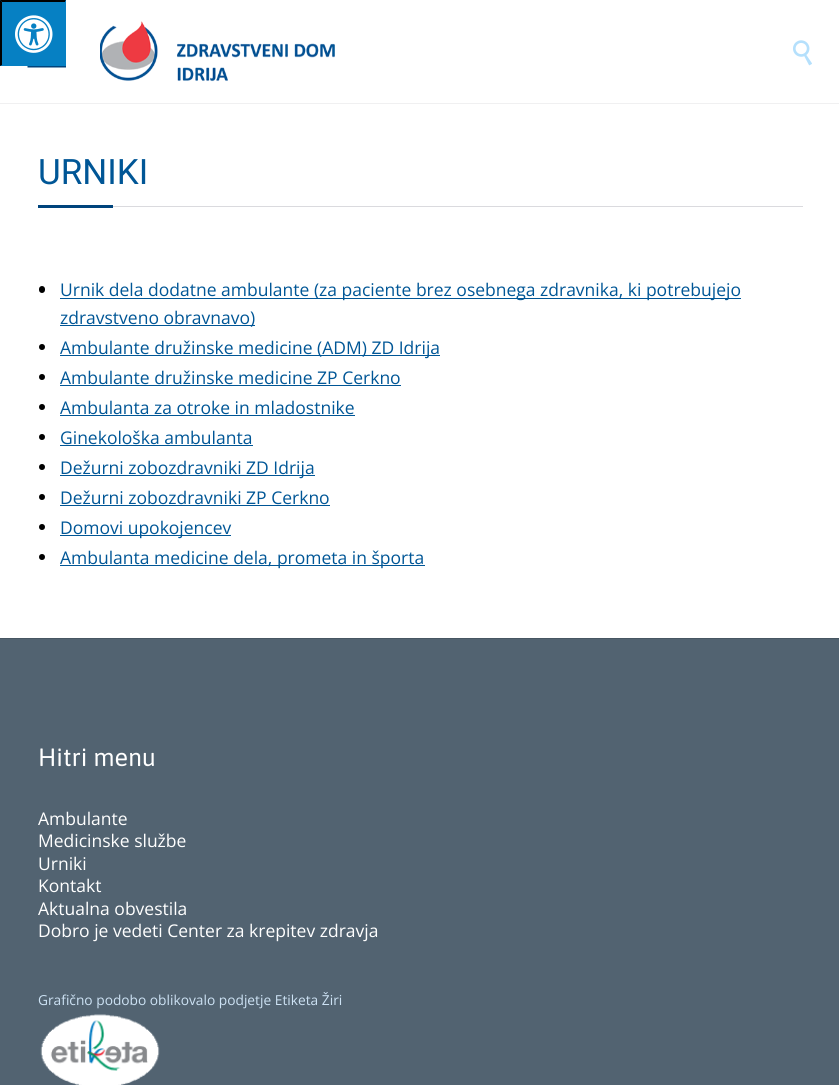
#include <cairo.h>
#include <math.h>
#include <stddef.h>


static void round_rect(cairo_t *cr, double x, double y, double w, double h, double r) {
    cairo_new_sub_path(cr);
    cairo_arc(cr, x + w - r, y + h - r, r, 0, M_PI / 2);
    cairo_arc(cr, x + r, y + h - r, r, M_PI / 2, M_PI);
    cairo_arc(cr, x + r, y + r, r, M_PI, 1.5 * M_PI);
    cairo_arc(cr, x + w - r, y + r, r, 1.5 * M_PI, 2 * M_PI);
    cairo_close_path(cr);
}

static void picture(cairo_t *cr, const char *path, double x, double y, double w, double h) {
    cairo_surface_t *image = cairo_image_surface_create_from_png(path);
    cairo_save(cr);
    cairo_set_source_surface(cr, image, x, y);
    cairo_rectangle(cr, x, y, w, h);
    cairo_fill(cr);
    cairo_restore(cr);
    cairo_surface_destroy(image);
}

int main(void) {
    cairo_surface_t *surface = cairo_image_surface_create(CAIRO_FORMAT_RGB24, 839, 1085);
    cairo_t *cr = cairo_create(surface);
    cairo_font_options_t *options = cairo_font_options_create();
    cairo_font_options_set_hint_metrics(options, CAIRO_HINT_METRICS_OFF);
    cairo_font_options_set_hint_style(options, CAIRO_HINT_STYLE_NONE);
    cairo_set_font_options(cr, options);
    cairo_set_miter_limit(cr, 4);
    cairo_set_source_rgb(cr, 1, 1, 1);
    cairo_paint(cr);
    cairo_set_source_rgb(cr, 0, 0.267, 0.486);
    cairo_new_path(cr);
    cairo_move_to(cr, 27.5, 37);
    cairo_line_to(cr, 66, 37);
    cairo_line_to(cr, 66, 45.5);
    cairo_line_to(cr, 27.5, 45.5);
    cairo_close_path(cr);
    cairo_move_to(cr, 27.5, 48);
    cairo_line_to(cr, 66, 48);
    cairo_line_to(cr, 66, 56.5);
    cairo_line_to(cr, 27.5, 56.5);
    cairo_close_path(cr);
    cairo_move_to(cr, 27.5, 59);
    cairo_line_to(cr, 66, 59);
    cairo_line_to(cr, 66, 67.5);
    cairo_line_to(cr, 27.5, 67.5);
    cairo_close_path(cr);
    cairo_fill(cr);
    cairo_set_source_rgb(cr, 0.027, 0.502, 0.765);
    cairo_rectangle(cr, 0, 0, 66, 66);
    cairo_fill(cr);
    cairo_set_source_rgb(cr, 0, 0, 0);
    cairo_new_path(cr);
    cairo_move_to(cr, 0, 0);
    cairo_line_to(cr, 66, 0);
    cairo_line_to(cr, 65, 2);
    cairo_line_to(cr, 2, 2);
    cairo_close_path(cr);
    cairo_fill(cr);
    cairo_set_source_rgb(cr, 0.027, 0.502, 0.765);
    cairo_new_path(cr);
    cairo_move_to(cr, 66, 0);
    cairo_line_to(cr, 66, 66);
    cairo_line_to(cr, 65, 65);
    cairo_line_to(cr, 65, 2);
    cairo_close_path(cr);
    cairo_fill(cr);
    cairo_set_source_rgb(cr, 0, 0, 0);
    cairo_new_path(cr);
    cairo_move_to(cr, 0, 66);
    cairo_line_to(cr, 0, 0);
    cairo_line_to(cr, 2, 2);
    cairo_line_to(cr, 2, 65);
    cairo_close_path(cr);
    cairo_fill(cr);
    picture(cr, "img1.png", 15, 15, 38, 38);
    cairo_set_source_rgb(cr, 0.941, 0.941, 0.945);
    cairo_rectangle(cr, 0, 103, 839, 1);
    cairo_fill(cr);
    picture(cr, "img2.png", 100, 21, 235, 61);
    picture(cr, "img3.png", 793, 40, 19, 26);
    cairo_set_source_rgb(cr, 0.855, 0.855, 0.871);
    cairo_rectangle(cr, 113, 206, 690, 1);
    cairo_fill(cr);
    cairo_select_font_face(cr, "Roboto", CAIRO_FONT_SLANT_NORMAL, CAIRO_FONT_WEIGHT_NORMAL);
    cairo_set_font_size(cr, 35);
    cairo_set_source_rgb(cr, 0, 0.337, 0.588);
    cairo_move_to(cr, 38, 184);
    cairo_show_text(cr, "URNIKI");
    cairo_set_source_rgb(cr, 0, 0.267, 0.486);
    cairo_rectangle(cr, 38, 205, 75, 3);
    cairo_fill(cr);
    cairo_set_source_rgb(cr, 0, 0, 0);
    round_rect(cr, 39, 286, 6, 7, 3);
    cairo_fill(cr);
    cairo_set_source_rgb(cr, 0, 0.337, 0.588);
    cairo_rectangle(cr, 60, 298, 681, 1);
    cairo_fill(cr);
    cairo_select_font_face(cr, "Open Sans", CAIRO_FONT_SLANT_NORMAL, CAIRO_FONT_WEIGHT_NORMAL);
    cairo_set_font_size(cr, 17.5);
    cairo_move_to(cr, 60, 296);
    cairo_show_text(cr, "Urnik dela dodatne ambulante (za paciente brez osebnega zdravnika, ki potrebujejo");
    cairo_rectangle(cr, 60, 325, 195, 1);
    cairo_fill(cr);
    cairo_move_to(cr, 60, 324);
    cairo_show_text(cr, "zdravstveno obravnavo)");
    cairo_set_source_rgb(cr, 0, 0, 0);
    cairo_new_path(cr);
    cairo_arc(cr, 42, 347, 3, 0, 2 * M_PI);
    cairo_fill(cr);
    cairo_set_source_rgb(cr, 0, 0.337, 0.588);
    cairo_rectangle(cr, 60, 355, 380, 1);
    cairo_fill(cr);
    cairo_move_to(cr, 60, 354);
    cairo_show_text(cr, "Ambulante družinske medicine (ADM) ZD Idrija");
    cairo_set_source_rgb(cr, 0, 0, 0);
    cairo_new_path(cr);
    cairo_arc(cr, 42, 377, 3, 0, 2 * M_PI);
    cairo_fill(cr);
    cairo_set_source_rgb(cr, 0, 0.337, 0.588);
    cairo_move_to(cr, 60, 384);
    cairo_show_text(cr, "Ambulante družinske medicine ZP Cerkno");
    cairo_rectangle(cr, 60, 385, 341, 1);
    cairo_fill(cr);
    cairo_set_source_rgb(cr, 0, 0, 0);
    cairo_arc(cr, 42, 407, 3, 0, 2 * M_PI);
    cairo_fill(cr);
    cairo_set_source_rgb(cr, 0, 0.337, 0.588);
    cairo_move_to(cr, 60, 414);
    cairo_show_text(cr, "Ambulanta za otroke in mladostnike");
    cairo_rectangle(cr, 60, 415, 295, 1);
    cairo_fill(cr);
    cairo_set_source_rgb(cr, 0, 0, 0);
    cairo_arc(cr, 42, 437, 3, 0, 2 * M_PI);
    cairo_fill(cr);
    cairo_set_source_rgb(cr, 0, 0.337, 0.588);
    cairo_move_to(cr, 60, 444);
    cairo_show_text(cr, "Ginekološka ambulanta");
    cairo_rectangle(cr, 60, 445, 193, 1);
    cairo_fill(cr);
    cairo_set_source_rgb(cr, 0, 0, 0);
    cairo_arc(cr, 42, 467, 3, 0, 2 * M_PI);
    cairo_fill(cr);
    cairo_set_source_rgb(cr, 0, 0.337, 0.588);
    cairo_rectangle(cr, 60, 475, 255, 1);
    cairo_fill(cr);
    cairo_move_to(cr, 60, 474);
    cairo_show_text(cr, "Dežurni zobozdravniki ZD Idrija");
    cairo_set_source_rgb(cr, 0, 0, 0);
    cairo_new_path(cr);
    cairo_arc(cr, 42, 497, 3, 0, 2 * M_PI);
    cairo_fill(cr);
    cairo_set_source_rgb(cr, 0, 0.337, 0.588);
    cairo_move_to(cr, 60, 504);
    cairo_show_text(cr, "Dežurni zobozdravniki ZP Cerkno");
    cairo_rectangle(cr, 60, 505, 270, 1);
    cairo_fill(cr);
    cairo_set_source_rgb(cr, 0, 0, 0);
    cairo_arc(cr, 42, 527, 3, 0, 2 * M_PI);
    cairo_fill(cr);
    cairo_set_source_rgb(cr, 0, 0.337, 0.588);
    cairo_rectangle(cr, 60, 535, 171, 1);
    cairo_fill(cr);
    cairo_move_to(cr, 60, 534);
    cairo_show_text(cr, "Domovi upokojencev");
    cairo_set_source_rgb(cr, 0, 0, 0);
    cairo_new_path(cr);
    cairo_arc(cr, 42, 557, 3, 0, 2 * M_PI);
    cairo_fill(cr);
    cairo_set_source_rgb(cr, 0, 0.337, 0.588);
    cairo_rectangle(cr, 60, 565, 365, 1);
    cairo_fill(cr);
    cairo_move_to(cr, 60, 564);
    cairo_show_text(cr, "Ambulanta medicine dela, prometa in športa");
    cairo_set_source_rgb(cr, 0.322, 0.388, 0.443);
    cairo_rectangle(cr, 0, 639, 839, 446);
    cairo_fill(cr);
    cairo_set_source_rgb(cr, 0.278, 0.337, 0.384);
    cairo_rectangle(cr, 0, 638, 839, 1);
    cairo_fill(cr);
    cairo_select_font_face(cr, "Asap", CAIRO_FONT_SLANT_NORMAL, CAIRO_FONT_WEIGHT_NORMAL);
    cairo_set_font_size(cr, 25);
    cairo_set_source_rgb(cr, 1, 1, 1);
    cairo_move_to(cr, 38, 766);
    cairo_show_text(cr, "Hitri menu");
    cairo_select_font_face(cr, "Open Sans", CAIRO_FONT_SLANT_NORMAL, CAIRO_FONT_WEIGHT_NORMAL);
    cairo_set_font_size(cr, 17.5);
    cairo_move_to(cr, 38, 825);
    cairo_show_text(cr, "Ambulante");
    cairo_move_to(cr, 38, 847);
    cairo_show_text(cr, "Medicinske službe");
    cairo_move_to(cr, 38, 870);
    cairo_show_text(cr, "Urniki");
    cairo_move_to(cr, 38, 892);
    cairo_show_text(cr, "Kontakt");
    cairo_move_to(cr, 38, 915);
    cairo_show_text(cr, "Aktualna obvestila");
    cairo_move_to(cr, 38, 937);
    cairo_show_text(cr, "Dobro je vedeti Center za krepitev zdravja");
    cairo_set_font_size(cr, 13.75);
    cairo_set_source_rgb(cr, 0.804, 0.886, 0.957);
    cairo_move_to(cr, 38, 1005);
    cairo_show_text(cr, "Grafično podobo oblikovalo podjetje Etiketa Žiri");
    picture(cr, "img4.png", 40, 1014, 120, 71);
    cairo_surface_write_to_png(surface, "page.png");
    cairo_font_options_destroy(options);
    cairo_destroy(cr);
    cairo_surface_destroy(surface);
    return 0;
}
